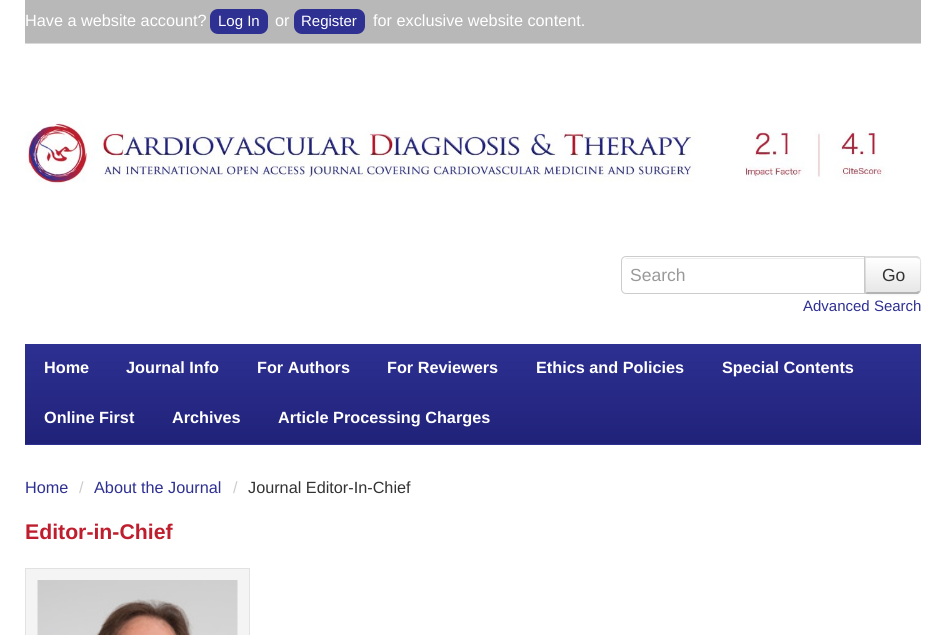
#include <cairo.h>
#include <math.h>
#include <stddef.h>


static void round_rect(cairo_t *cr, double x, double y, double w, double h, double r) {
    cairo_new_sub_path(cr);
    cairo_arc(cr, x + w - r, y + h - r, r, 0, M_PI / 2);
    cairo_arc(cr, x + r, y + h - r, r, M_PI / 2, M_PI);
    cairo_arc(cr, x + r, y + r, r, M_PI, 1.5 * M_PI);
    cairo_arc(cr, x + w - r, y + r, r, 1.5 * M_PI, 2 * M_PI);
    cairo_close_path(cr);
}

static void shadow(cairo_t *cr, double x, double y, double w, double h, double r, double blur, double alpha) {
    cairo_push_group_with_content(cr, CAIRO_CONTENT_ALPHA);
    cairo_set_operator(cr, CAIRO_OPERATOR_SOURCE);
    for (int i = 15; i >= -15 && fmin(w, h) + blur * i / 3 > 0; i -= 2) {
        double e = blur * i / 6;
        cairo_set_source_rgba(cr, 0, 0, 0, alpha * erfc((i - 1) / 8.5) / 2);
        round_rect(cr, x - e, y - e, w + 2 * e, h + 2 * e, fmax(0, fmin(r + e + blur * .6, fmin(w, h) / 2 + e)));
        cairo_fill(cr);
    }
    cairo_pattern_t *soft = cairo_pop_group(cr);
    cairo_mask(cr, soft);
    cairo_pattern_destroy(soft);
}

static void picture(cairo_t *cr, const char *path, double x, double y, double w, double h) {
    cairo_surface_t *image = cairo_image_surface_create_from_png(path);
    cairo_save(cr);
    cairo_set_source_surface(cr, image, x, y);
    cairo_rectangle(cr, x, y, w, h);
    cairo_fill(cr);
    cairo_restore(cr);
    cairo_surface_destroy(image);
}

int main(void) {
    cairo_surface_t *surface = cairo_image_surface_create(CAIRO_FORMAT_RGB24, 946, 635);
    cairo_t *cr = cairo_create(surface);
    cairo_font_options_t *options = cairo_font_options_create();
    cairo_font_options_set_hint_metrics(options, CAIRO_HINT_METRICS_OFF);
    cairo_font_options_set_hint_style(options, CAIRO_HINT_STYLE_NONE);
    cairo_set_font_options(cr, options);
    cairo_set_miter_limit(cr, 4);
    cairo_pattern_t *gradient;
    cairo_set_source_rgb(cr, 1, 1, 1);
    cairo_paint(cr);
    cairo_set_source_rgb(cr, 0.722, 0.722, 0.722);
    cairo_rectangle(cr, 25, 0, 896, 43);
    cairo_fill(cr);
    cairo_set_source_rgb(cr, 0.851, 0.851, 0.851);
    cairo_rectangle(cr, 25, 43, 896, 1);
    cairo_fill(cr);
    cairo_select_font_face(cr, "Liberation Sans", CAIRO_FONT_SLANT_NORMAL, CAIRO_FONT_WEIGHT_NORMAL);
    cairo_set_font_size(cr, 16.25);
    cairo_set_source_rgb(cr, 1, 1, 1);
    cairo_move_to(cr, 25, 26);
    cairo_show_text(cr, "Have a website account?");
    cairo_set_source_rgb(cr, 0.18, 0.188, 0.573);
    round_rect(cr, 210, 9, 58, 25, 8);
    cairo_fill(cr);
    cairo_set_font_size(cr, 15);
    cairo_set_source_rgb(cr, 1, 1, 1);
    cairo_move_to(cr, 218, 26);
    cairo_show_text(cr, "Log In");
    cairo_set_font_size(cr, 16.25);
    cairo_move_to(cr, 275, 26);
    cairo_show_text(cr, "or");
    cairo_set_source_rgb(cr, 0.18, 0.188, 0.573);
    round_rect(cr, 294, 9, 71, 25, 8);
    cairo_fill(cr);
    cairo_set_font_size(cr, 15);
    cairo_set_source_rgb(cr, 1, 1, 1);
    cairo_move_to(cr, 301, 26);
    cairo_show_text(cr, "Register");
    cairo_set_font_size(cr, 16.25);
    cairo_move_to(cr, 373, 26);
    cairo_show_text(cr, "for exclusive website content.");
    picture(cr, "img1.png", 25, 121, 860, 69);
    cairo_set_source_rgb(cr, 0.925, 0.925, 0.925);
    cairo_new_path(cr);
    cairo_move_to(cr, 626, 259);
    cairo_line_to(cr, 864, 259);
    cairo_line_to(cr, 864, 258);
    cairo_line_to(cr, 627, 258);
    cairo_curve_to(cr, 626, 258, 625, 259, 624, 259);
    cairo_close_path(cr);
    cairo_fill(cr);
    cairo_new_path(cr);
    cairo_move_to(cr, 626, 256.5);
    cairo_line_to(cr, 864.5, 256.5);
    cairo_line_to(cr, 864.5, 293.5);
    cairo_line_to(cr, 626, 293.5);
    cairo_curve_to(cr, 623.5, 293.5, 621.5, 291.5, 621.5, 289);
    cairo_line_to(cr, 621.5, 261);
    cairo_curve_to(cr, 621.5, 258.5, 623.5, 256.5, 626, 256.5);
    cairo_close_path(cr);
    cairo_set_source_rgb(cr, 0.8, 0.8, 0.8);
    cairo_set_line_width(cr, 1);
    cairo_stroke(cr);
    cairo_set_font_size(cr, 17.5);
    cairo_set_source_rgb(cr, 0.6, 0.6, 0.6);
    cairo_move_to(cr, 630, 281);
    cairo_show_text(cr, "Search");
    cairo_set_source_rgb(cr, 0, 0, 0);
    shadow(cr, 865, 258, 56, 37, 5, 1, 0.05);
    cairo_set_source_rgb(cr, 0.961, 0.961, 0.961);
    cairo_new_path(cr);
    cairo_move_to(cr, 865, 256);
    cairo_line_to(cr, 916, 256);
    cairo_curve_to(cr, 919, 256, 921, 258, 921, 261);
    cairo_line_to(cr, 921, 289);
    cairo_curve_to(cr, 921, 292, 919, 294, 916, 294);
    cairo_line_to(cr, 865, 294);
    cairo_close_path(cr);
    cairo_fill(cr);
    cairo_save(cr);
    cairo_new_path(cr);
    cairo_move_to(cr, 865, 256);
    cairo_line_to(cr, 916, 256);
    cairo_curve_to(cr, 919, 256, 921, 258, 921, 261);
    cairo_line_to(cr, 921, 289);
    cairo_curve_to(cr, 921, 292, 919, 294, 916, 294);
    cairo_line_to(cr, 865, 294);
    cairo_close_path(cr);
    cairo_clip(cr);
    gradient = cairo_pattern_create_linear(893, 258, 893, 293);
    cairo_pattern_add_color_stop_rgba(gradient, 0, 1, 1, 1, 1);
    cairo_pattern_add_color_stop_rgba(gradient, 1, 0.902, 0.902, 0.902, 1);
    cairo_set_source(cr, gradient);
    cairo_pattern_destroy(gradient);
    cairo_rectangle(cr, 865, 258, 56, 35);
    cairo_fill(cr);
    cairo_restore(cr);
    cairo_set_source_rgba(cr, 0, 0, 0, 0.1);
    cairo_new_path(cr);
    cairo_move_to(cr, 865, 256);
    cairo_line_to(cr, 918, 256);
    cairo_line_to(cr, 920, 258);
    cairo_line_to(cr, 919, 259);
    cairo_line_to(cr, 916, 258);
    cairo_line_to(cr, 867, 258);
    cairo_close_path(cr);
    cairo_fill(cr);
    cairo_new_path(cr);
    cairo_move_to(cr, 920, 257.5);
    cairo_curve_to(cr, 920.5, 258.5, 921, 259.5, 921, 261);
    cairo_line_to(cr, 921, 289);
    cairo_curve_to(cr, 921, 290.5, 920.5, 291.5, 920, 292.5);
    cairo_line_to(cr, 919, 291);
    cairo_curve_to(cr, 919.5, 291, 920, 290, 920, 289);
    cairo_line_to(cr, 920, 261);
    cairo_curve_to(cr, 920, 260, 919.5, 259, 919, 259);
    cairo_close_path(cr);
    cairo_fill(cr);
    cairo_set_source_rgb(cr, 0.702, 0.702, 0.702);
    cairo_new_path(cr);
    cairo_move_to(cr, 918, 294);
    cairo_line_to(cr, 865, 294);
    cairo_line_to(cr, 867, 292);
    cairo_line_to(cr, 916, 292);
    cairo_line_to(cr, 919, 291);
    cairo_line_to(cr, 920, 292);
    cairo_close_path(cr);
    cairo_fill(cr);
    cairo_set_source_rgba(cr, 0, 0, 0, 0.1);
    cairo_new_path(cr);
    cairo_move_to(cr, 866, 258);
    cairo_line_to(cr, 867, 258);
    cairo_line_to(cr, 865, 256);
    cairo_line_to(cr, 865, 294);
    cairo_line_to(cr, 867, 292);
    cairo_line_to(cr, 866, 292);
    cairo_close_path(cr);
    cairo_fill(cr);
    cairo_set_source_rgb(cr, 0.2, 0.2, 0.2);
    cairo_move_to(cr, 882, 281);
    cairo_show_text(cr, "Go");
    cairo_set_font_size(cr, 15);
    cairo_set_source_rgb(cr, 0.18, 0.188, 0.573);
    cairo_move_to(cr, 803, 311);
    cairo_show_text(cr, "Advanced Search");
    cairo_rectangle(cr, 25, 444, 896, 1);
    cairo_fill(cr);
    gradient = cairo_pattern_create_linear(473, 344, 473, 444);
    cairo_pattern_add_color_stop_rgba(gradient, 0, 0.18, 0.188, 0.573, 1);
    cairo_pattern_add_color_stop_rgba(gradient, 1, 0.125, 0.133, 0.475, 1);
    cairo_set_source(cr, gradient);
    cairo_pattern_destroy(gradient);
    cairo_rectangle(cr, 25, 344, 896, 100);
    cairo_fill(cr);
    cairo_select_font_face(cr, "Liberation Sans", CAIRO_FONT_SLANT_NORMAL, CAIRO_FONT_WEIGHT_BOLD);
    cairo_set_font_size(cr, 16.25);
    cairo_set_source_rgb(cr, 1, 1, 1);
    cairo_move_to(cr, 44, 373);
    cairo_show_text(cr, "Home");
    cairo_move_to(cr, 126, 373);
    cairo_show_text(cr, "Journal Info");
    cairo_move_to(cr, 257, 373);
    cairo_show_text(cr, "For Authors");
    cairo_move_to(cr, 387, 373);
    cairo_show_text(cr, "For Reviewers");
    cairo_move_to(cr, 536, 373);
    cairo_show_text(cr, "Ethics and Policies");
    cairo_move_to(cr, 722, 373);
    cairo_show_text(cr, "Special Contents");
    cairo_move_to(cr, 44, 423);
    cairo_show_text(cr, "Online First");
    cairo_move_to(cr, 172, 423);
    cairo_show_text(cr, "Archives");
    cairo_move_to(cr, 278, 423);
    cairo_show_text(cr, "Article Processing Charges");
    cairo_select_font_face(cr, "Liberation Sans", CAIRO_FONT_SLANT_NORMAL, CAIRO_FONT_WEIGHT_NORMAL);
    cairo_set_source_rgb(cr, 0.18, 0.188, 0.573);
    cairo_move_to(cr, 25, 493);
    cairo_show_text(cr, "Home");
    cairo_set_source_rgb(cr, 0.8, 0.8, 0.8);
    cairo_move_to(cr, 79, 493);
    cairo_show_text(cr, "/");
    cairo_set_source_rgb(cr, 0.18, 0.188, 0.573);
    cairo_move_to(cr, 94, 493);
    cairo_show_text(cr, "About the Journal");
    cairo_set_source_rgb(cr, 0.8, 0.8, 0.8);
    cairo_move_to(cr, 233, 493);
    cairo_show_text(cr, "/");
    cairo_set_source_rgb(cr, 0.2, 0.2, 0.2);
    cairo_move_to(cr, 248, 493);
    cairo_show_text(cr, "Journal Editor-In-Chief");
    cairo_select_font_face(cr, "Liberation Sans", CAIRO_FONT_SLANT_NORMAL, CAIRO_FONT_WEIGHT_BOLD);
    cairo_set_font_size(cr, 21.25);
    cairo_set_source_rgb(cr, 0.745, 0.118, 0.176);
    cairo_move_to(cr, 25, 539);
    cairo_show_text(cr, "Editor-in-Chief");
    cairo_set_source_rgb(cr, 0.957, 0.957, 0.957);
    cairo_rectangle(cr, 25.5, 568.5, 224, 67);
    cairo_fill_preserve(cr);
    cairo_set_source_rgb(cr, 0.886, 0.886, 0.886);
    cairo_stroke(cr);
    picture(cr, "img2.png", 37, 580, 201, 55);
    cairo_surface_write_to_png(surface, "page.png");
    cairo_font_options_destroy(options);
    cairo_destroy(cr);
    cairo_surface_destroy(surface);
    return 0;
}
